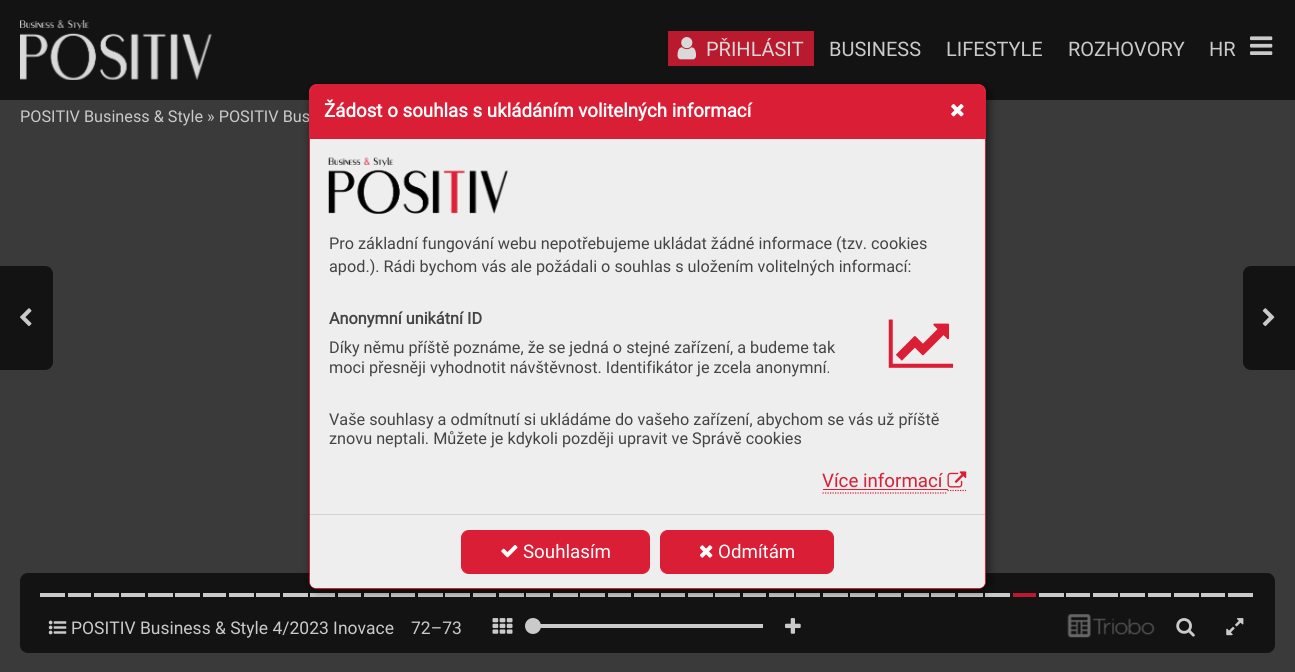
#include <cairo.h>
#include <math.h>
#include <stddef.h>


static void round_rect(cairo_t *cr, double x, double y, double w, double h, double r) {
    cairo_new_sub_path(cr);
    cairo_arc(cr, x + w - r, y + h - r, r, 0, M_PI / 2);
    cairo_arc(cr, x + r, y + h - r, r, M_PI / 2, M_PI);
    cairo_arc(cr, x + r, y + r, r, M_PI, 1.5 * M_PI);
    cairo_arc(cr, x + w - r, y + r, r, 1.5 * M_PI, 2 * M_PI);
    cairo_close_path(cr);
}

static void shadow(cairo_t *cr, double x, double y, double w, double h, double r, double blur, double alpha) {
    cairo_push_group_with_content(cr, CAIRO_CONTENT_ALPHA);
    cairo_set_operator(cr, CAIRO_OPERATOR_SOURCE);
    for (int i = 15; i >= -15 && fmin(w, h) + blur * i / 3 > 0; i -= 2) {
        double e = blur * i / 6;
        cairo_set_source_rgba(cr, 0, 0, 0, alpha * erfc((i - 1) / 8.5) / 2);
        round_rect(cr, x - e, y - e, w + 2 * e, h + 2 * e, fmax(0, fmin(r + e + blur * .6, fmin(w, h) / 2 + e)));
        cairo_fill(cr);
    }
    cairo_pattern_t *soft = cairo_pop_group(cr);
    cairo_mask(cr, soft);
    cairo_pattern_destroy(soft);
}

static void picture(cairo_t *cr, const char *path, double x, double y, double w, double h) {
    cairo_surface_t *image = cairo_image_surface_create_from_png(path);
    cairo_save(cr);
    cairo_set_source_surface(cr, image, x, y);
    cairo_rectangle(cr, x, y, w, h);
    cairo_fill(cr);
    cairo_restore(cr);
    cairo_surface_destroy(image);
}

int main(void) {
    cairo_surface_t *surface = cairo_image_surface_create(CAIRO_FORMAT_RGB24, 1295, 672);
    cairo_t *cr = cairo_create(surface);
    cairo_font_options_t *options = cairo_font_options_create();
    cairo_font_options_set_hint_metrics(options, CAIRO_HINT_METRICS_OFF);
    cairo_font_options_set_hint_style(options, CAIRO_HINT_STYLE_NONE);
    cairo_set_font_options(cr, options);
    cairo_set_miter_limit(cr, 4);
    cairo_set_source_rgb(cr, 0.227, 0.227, 0.227);
    cairo_paint(cr);
    cairo_set_source_rgb(cr, 0.078, 0.078, 0.078);
    cairo_rectangle(cr, 0, 0, 1295, 100);
    cairo_fill(cr);
    picture(cr, "img1.png", 20, 20, 192, 60);
    cairo_set_source_rgb(cr, 0.725, 0.102, 0.18);
    cairo_rectangle(cr, 668, 31, 146, 35);
    cairo_fill(cr);
    picture(cr, "img2.png", 677, 37, 20, 23);
    cairo_select_font_face(cr, "Roboto", CAIRO_FONT_SLANT_NORMAL, CAIRO_FONT_WEIGHT_NORMAL);
    cairo_set_font_size(cr, 20);
    cairo_set_source_rgb(cr, 0.851, 0.851, 0.851);
    cairo_move_to(cr, 706, 56);
    cairo_show_text(cr, "PŘIHLÁSIT");
    cairo_set_source_rgb(cr, 0.792, 0.792, 0.792);
    cairo_move_to(cr, 829, 56);
    cairo_show_text(cr, "BUSINESS");
    cairo_move_to(cr, 946, 56);
    cairo_show_text(cr, "LIFESTYLE");
    cairo_move_to(cr, 1068, 56);
    cairo_show_text(cr, "ROZHOVORY");
    cairo_move_to(cr, 1209, 56);
    cairo_show_text(cr, "HR");
    picture(cr, "img3.png", 1250, 36, 23, 19);
    cairo_set_font_size(cr, 16.25);
    cairo_move_to(cr, 20, 122);
    cairo_show_text(cr, "POSITIV Business & Style » POSITIV Bus");
    cairo_set_source_rgb(cr, 0.078, 0.078, 0.078);
    cairo_new_path(cr);
    cairo_move_to(cr, 0, 266);
    cairo_line_to(cr, 45, 266);
    cairo_curve_to(cr, 49.5, 266, 53, 269.5, 53, 274);
    cairo_line_to(cr, 53, 362);
    cairo_curve_to(cr, 53, 366.5, 49.5, 370, 45, 370);
    cairo_line_to(cr, 0, 370);
    cairo_close_path(cr);
    cairo_fill(cr);
    picture(cr, "img4.png", 20, 308, 12, 19);
    cairo_new_path(cr);
    cairo_move_to(cr, 1251, 266);
    cairo_line_to(cr, 1295, 266);
    cairo_line_to(cr, 1295, 370);
    cairo_line_to(cr, 1251, 370);
    cairo_curve_to(cr, 1246.5, 370, 1243, 366.5, 1243, 362);
    cairo_line_to(cr, 1243, 274);
    cairo_curve_to(cr, 1243, 269.5, 1246.5, 266, 1251, 266);
    cairo_close_path(cr);
    cairo_fill(cr);
    picture(cr, "img5.png", 1262, 308, 13, 19);
    round_rect(cr, 20, 573, 1255, 80, 8);
    cairo_fill(cr);
    cairo_set_source_rgb(cr, 0.792, 0.792, 0.792);
    cairo_rectangle(cr, 40, 593, 25, 4);
    cairo_fill(cr);
    cairo_rectangle(cr, 68, 593, 23, 4);
    cairo_fill(cr);
    cairo_rectangle(cr, 94, 593, 25, 4);
    cairo_fill(cr);
    cairo_rectangle(cr, 121, 593, 24, 4);
    cairo_fill(cr);
    cairo_rectangle(cr, 148, 593, 25, 4);
    cairo_fill(cr);
    cairo_rectangle(cr, 175, 593, 25, 4);
    cairo_fill(cr);
    cairo_rectangle(cr, 203, 593, 23, 4);
    cairo_fill(cr);
    cairo_rectangle(cr, 229, 593, 25, 4);
    cairo_fill(cr);
    cairo_rectangle(cr, 256, 593, 24, 4);
    cairo_fill(cr);
    cairo_rectangle(cr, 283, 593, 25, 4);
    cairo_fill(cr);
    cairo_rectangle(cr, 310, 593, 25, 4);
    cairo_fill(cr);
    cairo_rectangle(cr, 338, 593, 23, 4);
    cairo_fill(cr);
    cairo_rectangle(cr, 364, 593, 25, 4);
    cairo_fill(cr);
    cairo_rectangle(cr, 391, 593, 24, 4);
    cairo_fill(cr);
    cairo_rectangle(cr, 418, 593, 25, 4);
    cairo_fill(cr);
    cairo_rectangle(cr, 445, 593, 25, 4);
    cairo_fill(cr);
    cairo_rectangle(cr, 473, 593, 23, 4);
    cairo_fill(cr);
    cairo_rectangle(cr, 499, 593, 25, 4);
    cairo_fill(cr);
    cairo_rectangle(cr, 526, 593, 24, 4);
    cairo_fill(cr);
    cairo_rectangle(cr, 553, 593, 25, 4);
    cairo_fill(cr);
    cairo_rectangle(cr, 580, 593, 25, 4);
    cairo_fill(cr);
    cairo_rectangle(cr, 608, 593, 23, 4);
    cairo_fill(cr);
    cairo_rectangle(cr, 634, 593, 25, 4);
    cairo_fill(cr);
    cairo_rectangle(cr, 661, 593, 24, 4);
    cairo_fill(cr);
    cairo_rectangle(cr, 688, 593, 25, 4);
    cairo_fill(cr);
    cairo_rectangle(cr, 715, 593, 25, 4);
    cairo_fill(cr);
    cairo_rectangle(cr, 743, 593, 23, 4);
    cairo_fill(cr);
    cairo_rectangle(cr, 769, 593, 25, 4);
    cairo_fill(cr);
    cairo_rectangle(cr, 796, 593, 24, 4);
    cairo_fill(cr);
    cairo_rectangle(cr, 823, 593, 25, 4);
    cairo_fill(cr);
    cairo_rectangle(cr, 850, 593, 25, 4);
    cairo_fill(cr);
    cairo_rectangle(cr, 878, 593, 23, 4);
    cairo_fill(cr);
    cairo_rectangle(cr, 904, 593, 25, 4);
    cairo_fill(cr);
    cairo_rectangle(cr, 931, 593, 24, 4);
    cairo_fill(cr);
    cairo_rectangle(cr, 958, 593, 25, 4);
    cairo_fill(cr);
    cairo_rectangle(cr, 985, 593, 25, 4);
    cairo_fill(cr);
    cairo_rectangle(cr, 1039, 593, 25, 4);
    cairo_fill(cr);
    cairo_rectangle(cr, 1066, 593, 24, 4);
    cairo_fill(cr);
    cairo_rectangle(cr, 1093, 593, 25, 4);
    cairo_fill(cr);
    cairo_rectangle(cr, 1120, 593, 25, 4);
    cairo_fill(cr);
    cairo_rectangle(cr, 1148, 593, 23, 4);
    cairo_fill(cr);
    cairo_rectangle(cr, 1174, 593, 25, 4);
    cairo_fill(cr);
    cairo_rectangle(cr, 1201, 593, 24, 4);
    cairo_fill(cr);
    cairo_rectangle(cr, 1228, 593, 25, 4);
    cairo_fill(cr);
    cairo_set_source_rgb(cr, 0.725, 0.102, 0.18);
    cairo_rectangle(cr, 1013, 593, 23, 4);
    cairo_fill(cr);
    picture(cr, "img6.png", 48, 620, 19, 15);
    cairo_set_font_size(cr, 17.5);
    cairo_set_source_rgb(cr, 0.792, 0.792, 0.792);
    cairo_move_to(cr, 71, 634);
    cairo_show_text(cr, "POSITIV Business & Style 4/2023 Inovace");
    cairo_move_to(cr, 411, 634);
    cairo_show_text(cr, "72–73");
    picture(cr, "img7.png", 492, 618, 21, 16);
    cairo_rectangle(cr, 533, 624, 230, 4);
    cairo_fill(cr);
    cairo_arc(cr, 533, 626, 8, 0, 2 * M_PI);
    cairo_fill(cr);
    picture(cr, "img8.png", 785, 618, 16, 16);
    picture(cr, "img9.png", 1067, 614, 88, 24);
    picture(cr, "img10.png", 1176, 618, 19, 19);
    picture(cr, "img11.png", 1226, 618, 18, 18);
    cairo_set_source_rgb(cr, 0, 0, 0);
    shadow(cr, 311, 86, 678, 505, 8, 4.5, 0.53);
    cairo_set_source_rgb(cr, 0.933, 0.933, 0.933);
    round_rect(cr, 309.5, 84.5, 676, 504, 7.5);
    cairo_fill_preserve(cr);
    cairo_set_source_rgb(cr, 0.855, 0.118, 0.212);
    cairo_set_line_width(cr, 1);
    cairo_stroke(cr);
    cairo_new_path(cr);
    cairo_move_to(cr, 316, 85);
    cairo_line_to(cr, 979, 85);
    cairo_curve_to(cr, 982.5, 85, 985, 87.5, 985, 91);
    cairo_line_to(cr, 985, 139);
    cairo_line_to(cr, 310, 139);
    cairo_line_to(cr, 310, 91);
    cairo_curve_to(cr, 310, 87.5, 312.5, 85, 316, 85);
    cairo_close_path(cr);
    cairo_fill(cr);
    cairo_select_font_face(cr, "Roboto", CAIRO_FONT_SLANT_NORMAL, CAIRO_FONT_WEIGHT_BOLD);
    cairo_set_font_size(cr, 18.75);
    cairo_set_source_rgb(cr, 1, 1, 1);
    cairo_move_to(cr, 324, 117);
    cairo_show_text(cr, "Žádost o souhlas s ukládáním volitelných informací");
    picture(cr, "img12.png", 951, 104, 13, 13);
    picture(cr, "img13.png", 328, 157, 180, 57);
    cairo_select_font_face(cr, "Roboto", CAIRO_FONT_SLANT_NORMAL, CAIRO_FONT_WEIGHT_NORMAL);
    cairo_set_font_size(cr, 16.25);
    cairo_set_source_rgb(cr, 0.267, 0.267, 0.267);
    cairo_move_to(cr, 329, 249);
    cairo_show_text(cr, "Pro základní fungování webu nepotřebujeme ukládat žádné informace (tzv. cookies");
    cairo_move_to(cr, 329, 272);
    cairo_show_text(cr, "apod.). Rádi bychom vás ale požádali o souhlas s uložením volitelných informací:");
    cairo_select_font_face(cr, "Roboto", CAIRO_FONT_SLANT_NORMAL, CAIRO_FONT_WEIGHT_BOLD);
    cairo_move_to(cr, 329, 324);
    cairo_show_text(cr, "Anonymní unikátní ID");
    picture(cr, "img14.png", 888, 319, 66, 49);
    cairo_select_font_face(cr, "Roboto", CAIRO_FONT_SLANT_NORMAL, CAIRO_FONT_WEIGHT_NORMAL);
    cairo_move_to(cr, 329, 353);
    cairo_show_text(cr, "Díky němu příště poznáme, že se jedná o stejné zařízení, a budeme tak");
    cairo_move_to(cr, 329, 373);
    cairo_show_text(cr, "moci přesněji vyhodnotit návštěvnost. Identifikátor je zcela anonymní.");
    cairo_move_to(cr, 329, 425);
    cairo_show_text(cr, "Vaše souhlasy a odmítnutí si ukládáme do vašeho zařízení, abychom se vás už příště");
    cairo_move_to(cr, 329, 444);
    cairo_show_text(cr, "znovu neptali. Můžete je kdykoli později upravit ve Správě cookies");
    cairo_new_path(cr);
    cairo_move_to(cr, 822.5, 493);
    cairo_line_to(cr, 947.5, 493);
    cairo_set_source_rgb(cr, 0.855, 0.118, 0.212);
    cairo_set_line_width(cr, 1.2);
    cairo_set_dash(cr, (double[]){1.25, 1.25}, 2, 0);
    cairo_stroke(cr);
    cairo_new_path(cr);
    cairo_move_to(cr, 947.5, 490.5);
    cairo_line_to(cr, 966, 490.5);
    cairo_stroke(cr);
    cairo_set_font_size(cr, 18.75);
    cairo_move_to(cr, 822, 487);
    cairo_show_text(cr, "Více informací");
    cairo_rectangle(cr, 823, 489, 125, 1);
    cairo_fill(cr);
    picture(cr, "img15.png", 947, 471, 20, 17);
    cairo_set_source_rgb(cr, 0.933, 0.933, 0.933);
    cairo_new_path(cr);
    cairo_move_to(cr, 310, 514);
    cairo_line_to(cr, 985, 514);
    cairo_line_to(cr, 985, 582);
    cairo_curve_to(cr, 985, 585.5, 982.5, 588, 979, 588);
    cairo_line_to(cr, 316, 588);
    cairo_curve_to(cr, 312.5, 588, 310, 585.5, 310, 582);
    cairo_close_path(cr);
    cairo_fill(cr);
    cairo_set_source_rgb(cr, 0.827, 0.827, 0.827);
    cairo_rectangle(cr, 310, 514, 675, 1);
    cairo_fill(cr);
    cairo_set_source_rgb(cr, 0.855, 0.118, 0.212);
    round_rect(cr, 461.5, 530.5, 188, 43, 7.5);
    cairo_fill_preserve(cr);
    cairo_set_line_width(cr, 1);
    cairo_set_dash(cr, NULL, 0, 0);
    cairo_stroke(cr);
    picture(cr, "img16.png", 501, 545, 17, 13);
    cairo_set_source_rgb(cr, 1, 1, 1);
    cairo_move_to(cr, 523, 558);
    cairo_show_text(cr, "Souhlasím");
    cairo_set_source_rgb(cr, 0.855, 0.118, 0.212);
    round_rect(cr, 660.5, 530.5, 173, 43, 7.5);
    cairo_fill_preserve(cr);
    cairo_stroke(cr);
    picture(cr, "img17.png", 699, 545, 14, 13);
    cairo_set_source_rgb(cr, 1, 1, 1);
    cairo_move_to(cr, 718, 558);
    cairo_show_text(cr, "Odmítám");
    cairo_surface_write_to_png(surface, "page.png");
    cairo_font_options_destroy(options);
    cairo_destroy(cr);
    cairo_surface_destroy(surface);
    return 0;
}
